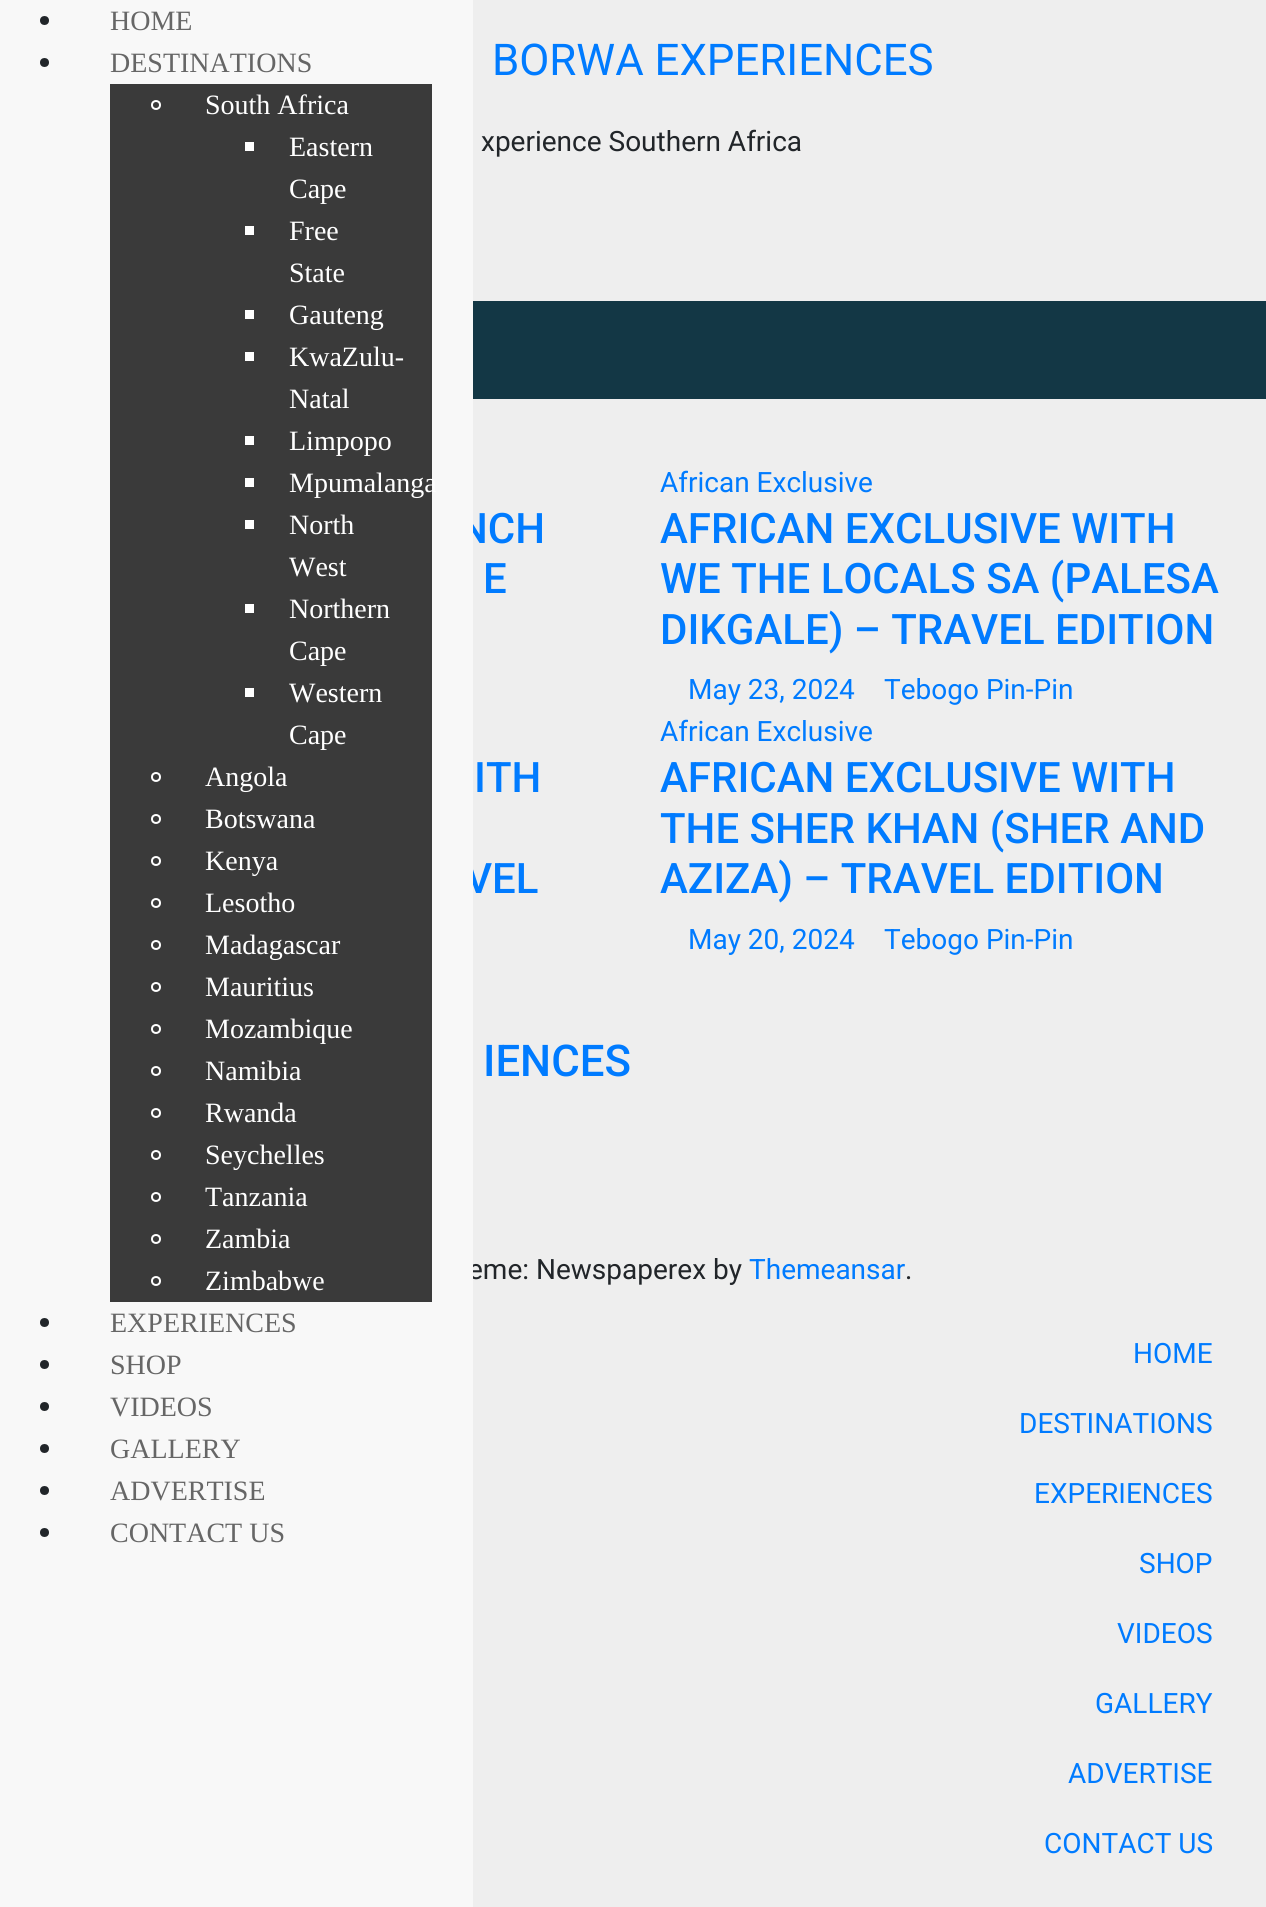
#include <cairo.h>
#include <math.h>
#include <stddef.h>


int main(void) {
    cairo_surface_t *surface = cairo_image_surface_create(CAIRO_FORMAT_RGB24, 1266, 1907);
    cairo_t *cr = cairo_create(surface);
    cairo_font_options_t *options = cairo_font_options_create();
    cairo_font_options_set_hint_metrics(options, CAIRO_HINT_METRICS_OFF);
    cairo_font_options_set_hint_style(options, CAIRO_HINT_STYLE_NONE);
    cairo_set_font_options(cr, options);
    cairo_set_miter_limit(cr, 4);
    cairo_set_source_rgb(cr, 0.933, 0.933, 0.933);
    cairo_paint(cr);
    cairo_select_font_face(cr, "Roboto Medium", CAIRO_FONT_SLANT_NORMAL, CAIRO_FONT_WEIGHT_NORMAL);
    cairo_set_font_size(cr, 42);
    cairo_set_source_rgb(cr, 0, 0.482, 1);
    cairo_move_to(cr, 458, 543);
    cairo_show_text(cr, "NCH");
    cairo_move_to(cr, 465, 893);
    cairo_show_text(cr, "VEL");
    cairo_select_font_face(cr, "Roboto", CAIRO_FONT_SLANT_NORMAL, CAIRO_FONT_WEIGHT_NORMAL);
    cairo_set_font_size(cr, 28);
    cairo_set_source_rgb(cr, 0.129, 0.145, 0.161);
    cairo_move_to(cr, 468, 1279);
    cairo_show_text(cr, "eme: Newspaperex by");
    cairo_set_source_rgb(cr, 0.969, 0.969, 0.969);
    cairo_rectangle(cr, 0, 0, 473, 1907);
    cairo_fill(cr);
    cairo_set_source_rgb(cr, 0.129, 0.145, 0.161);
    cairo_arc(cr, 44.5, 20.5, 4.5, 0, 2 * M_PI);
    cairo_fill(cr);
    cairo_select_font_face(cr, "Liberation Serif", CAIRO_FONT_SLANT_NORMAL, CAIRO_FONT_WEIGHT_NORMAL);
    cairo_set_source_rgb(cr, 0.4, 0.4, 0.4);
    cairo_move_to(cr, 110, 30);
    cairo_show_text(cr, "HOME");
    cairo_set_source_rgb(cr, 0.129, 0.145, 0.161);
    cairo_new_path(cr);
    cairo_arc(cr, 44.5, 62.5, 4.5, 0, 2 * M_PI);
    cairo_fill(cr);
    cairo_set_source_rgb(cr, 0.4, 0.4, 0.4);
    cairo_move_to(cr, 110, 72);
    cairo_show_text(cr, "DESTINATIONS");
    cairo_set_source_rgb(cr, 0.227, 0.227, 0.227);
    cairo_rectangle(cr, 110, 84, 322, 1218);
    cairo_fill(cr);
    cairo_arc(cr, 156, 105, 4, 0, 2 * M_PI);
    cairo_set_source_rgb(cr, 1, 1, 1);
    cairo_stroke(cr);
    cairo_move_to(cr, 205, 114);
    cairo_show_text(cr, "South Africa");
    cairo_rectangle(cr, 245, 142, 9, 9);
    cairo_fill(cr);
    cairo_move_to(cr, 289, 156);
    cairo_show_text(cr, "Eastern");
    cairo_move_to(cr, 289, 198);
    cairo_show_text(cr, "Cape");
    cairo_rectangle(cr, 245, 226, 9, 9);
    cairo_fill(cr);
    cairo_move_to(cr, 289, 240);
    cairo_show_text(cr, "Free");
    cairo_move_to(cr, 289, 282);
    cairo_show_text(cr, "State");
    cairo_rectangle(cr, 245, 310, 9, 9);
    cairo_fill(cr);
    cairo_move_to(cr, 289, 324);
    cairo_show_text(cr, "Gauteng");
    cairo_rectangle(cr, 245, 352, 9, 9);
    cairo_fill(cr);
    cairo_move_to(cr, 289, 366);
    cairo_show_text(cr, "KwaZulu-");
    cairo_move_to(cr, 289, 408);
    cairo_show_text(cr, "Natal");
    cairo_rectangle(cr, 245, 436, 9, 9);
    cairo_fill(cr);
    cairo_move_to(cr, 289, 450);
    cairo_show_text(cr, "Limpopo");
    cairo_rectangle(cr, 245, 478, 9, 9);
    cairo_fill(cr);
    cairo_move_to(cr, 289, 492);
    cairo_show_text(cr, "Mpumalanga");
    cairo_rectangle(cr, 245, 520, 9, 9);
    cairo_fill(cr);
    cairo_move_to(cr, 289, 534);
    cairo_show_text(cr, "North");
    cairo_move_to(cr, 289, 576);
    cairo_show_text(cr, "West");
    cairo_rectangle(cr, 245, 604, 9, 9);
    cairo_fill(cr);
    cairo_move_to(cr, 289, 618);
    cairo_show_text(cr, "Northern");
    cairo_move_to(cr, 289, 660);
    cairo_show_text(cr, "Cape");
    cairo_rectangle(cr, 245, 688, 9, 9);
    cairo_fill(cr);
    cairo_move_to(cr, 289, 702);
    cairo_show_text(cr, "Western");
    cairo_move_to(cr, 289, 744);
    cairo_show_text(cr, "Cape");
    cairo_new_path(cr);
    cairo_arc(cr, 156, 777, 4, 0, 2 * M_PI);
    cairo_stroke(cr);
    cairo_move_to(cr, 205, 786);
    cairo_show_text(cr, "Angola");
    cairo_new_path(cr);
    cairo_arc(cr, 156, 819, 4, 0, 2 * M_PI);
    cairo_stroke(cr);
    cairo_move_to(cr, 205, 828);
    cairo_show_text(cr, "Botswana");
    cairo_new_path(cr);
    cairo_arc(cr, 156, 861, 4, 0, 2 * M_PI);
    cairo_stroke(cr);
    cairo_move_to(cr, 205, 870);
    cairo_show_text(cr, "Kenya");
    cairo_new_path(cr);
    cairo_arc(cr, 156, 903, 4, 0, 2 * M_PI);
    cairo_stroke(cr);
    cairo_move_to(cr, 205, 912);
    cairo_show_text(cr, "Lesotho");
    cairo_new_path(cr);
    cairo_arc(cr, 156, 945, 4, 0, 2 * M_PI);
    cairo_stroke(cr);
    cairo_move_to(cr, 205, 954);
    cairo_show_text(cr, "Madagascar");
    cairo_new_path(cr);
    cairo_arc(cr, 156, 987, 4, 0, 2 * M_PI);
    cairo_stroke(cr);
    cairo_move_to(cr, 205, 996);
    cairo_show_text(cr, "Mauritius");
    cairo_new_path(cr);
    cairo_arc(cr, 156, 1029, 4, 0, 2 * M_PI);
    cairo_stroke(cr);
    cairo_move_to(cr, 205, 1038);
    cairo_show_text(cr, "Mozambique");
    cairo_new_path(cr);
    cairo_arc(cr, 156, 1071, 4, 0, 2 * M_PI);
    cairo_stroke(cr);
    cairo_move_to(cr, 205, 1080);
    cairo_show_text(cr, "Namibia");
    cairo_new_path(cr);
    cairo_arc(cr, 156, 1113, 4, 0, 2 * M_PI);
    cairo_stroke(cr);
    cairo_move_to(cr, 205, 1122);
    cairo_show_text(cr, "Rwanda");
    cairo_new_path(cr);
    cairo_arc(cr, 156, 1155, 4, 0, 2 * M_PI);
    cairo_stroke(cr);
    cairo_move_to(cr, 205, 1164);
    cairo_show_text(cr, "Seychelles");
    cairo_new_path(cr);
    cairo_arc(cr, 156, 1197, 4, 0, 2 * M_PI);
    cairo_stroke(cr);
    cairo_move_to(cr, 205, 1206);
    cairo_show_text(cr, "Tanzania");
    cairo_new_path(cr);
    cairo_arc(cr, 156, 1239, 4, 0, 2 * M_PI);
    cairo_stroke(cr);
    cairo_move_to(cr, 205, 1248);
    cairo_show_text(cr, "Zambia");
    cairo_new_path(cr);
    cairo_arc(cr, 156, 1281, 4, 0, 2 * M_PI);
    cairo_stroke(cr);
    cairo_move_to(cr, 205, 1290);
    cairo_show_text(cr, "Zimbabwe");
    cairo_set_source_rgb(cr, 0.129, 0.145, 0.161);
    cairo_new_path(cr);
    cairo_arc(cr, 44.5, 1322.5, 4.5, 0, 2 * M_PI);
    cairo_fill(cr);
    cairo_set_source_rgb(cr, 0.4, 0.4, 0.4);
    cairo_move_to(cr, 110, 1332);
    cairo_show_text(cr, "EXPERIENCES");
    cairo_set_source_rgb(cr, 0.129, 0.145, 0.161);
    cairo_new_path(cr);
    cairo_arc(cr, 44.5, 1364.5, 4.5, 0, 2 * M_PI);
    cairo_fill(cr);
    cairo_set_source_rgb(cr, 0.4, 0.4, 0.4);
    cairo_move_to(cr, 110, 1374);
    cairo_show_text(cr, "SHOP");
    cairo_set_source_rgb(cr, 0.129, 0.145, 0.161);
    cairo_new_path(cr);
    cairo_arc(cr, 44.5, 1406.5, 4.5, 0, 2 * M_PI);
    cairo_fill(cr);
    cairo_set_source_rgb(cr, 0.4, 0.4, 0.4);
    cairo_move_to(cr, 110, 1416);
    cairo_show_text(cr, "VIDEOS");
    cairo_set_source_rgb(cr, 0.129, 0.145, 0.161);
    cairo_new_path(cr);
    cairo_arc(cr, 44.5, 1448.5, 4.5, 0, 2 * M_PI);
    cairo_fill(cr);
    cairo_set_source_rgb(cr, 0.4, 0.4, 0.4);
    cairo_move_to(cr, 110, 1458);
    cairo_show_text(cr, "GALLERY");
    cairo_set_source_rgb(cr, 0.129, 0.145, 0.161);
    cairo_new_path(cr);
    cairo_arc(cr, 44.5, 1490.5, 4.5, 0, 2 * M_PI);
    cairo_fill(cr);
    cairo_set_source_rgb(cr, 0.4, 0.4, 0.4);
    cairo_move_to(cr, 110, 1500);
    cairo_show_text(cr, "ADVERTISE");
    cairo_set_source_rgb(cr, 0.129, 0.145, 0.161);
    cairo_new_path(cr);
    cairo_arc(cr, 44.5, 1532.5, 4.5, 0, 2 * M_PI);
    cairo_fill(cr);
    cairo_set_source_rgb(cr, 0.4, 0.4, 0.4);
    cairo_move_to(cr, 110, 1542);
    cairo_show_text(cr, "CONTACT US");
    cairo_select_font_face(cr, "Roboto", CAIRO_FONT_SLANT_NORMAL, CAIRO_FONT_WEIGHT_NORMAL);
    cairo_set_font_size(cr, 43.75);
    cairo_set_source_rgb(cr, 0, 0.482, 1);
    cairo_move_to(cr, 492, 75);
    cairo_show_text(cr, "BORWA EXPERIENCES");
    cairo_set_font_size(cr, 28);
    cairo_set_source_rgb(cr, 0.129, 0.145, 0.161);
    cairo_move_to(cr, 481, 151);
    cairo_show_text(cr, "xperience Southern Africa");
    cairo_set_source_rgb(cr, 0.078, 0.216, 0.271);
    cairo_rectangle(cr, 473, 301, 793, 98);
    cairo_fill(cr);
    cairo_select_font_face(cr, "Roboto Medium", CAIRO_FONT_SLANT_NORMAL, CAIRO_FONT_WEIGHT_NORMAL);
    cairo_set_font_size(cr, 42);
    cairo_set_source_rgb(cr, 0, 0.482, 1);
    cairo_move_to(cr, 483, 593);
    cairo_show_text(cr, "E");
    cairo_select_font_face(cr, "Roboto", CAIRO_FONT_SLANT_NORMAL, CAIRO_FONT_WEIGHT_NORMAL);
    cairo_set_font_size(cr, 28);
    cairo_move_to(cr, 660, 492);
    cairo_show_text(cr, "African Exclusive");
    cairo_select_font_face(cr, "Roboto Medium", CAIRO_FONT_SLANT_NORMAL, CAIRO_FONT_WEIGHT_NORMAL);
    cairo_set_font_size(cr, 42);
    cairo_move_to(cr, 660, 543);
    cairo_show_text(cr, "AFRICAN EXCLUSIVE WITH");
    cairo_move_to(cr, 660, 593);
    cairo_show_text(cr, "WE THE LOCALS SA (PALESA");
    cairo_move_to(cr, 660, 644);
    cairo_show_text(cr, "DIKGALE) – TRAVEL EDITION");
    cairo_select_font_face(cr, "Roboto", CAIRO_FONT_SLANT_NORMAL, CAIRO_FONT_WEIGHT_NORMAL);
    cairo_set_font_size(cr, 28);
    cairo_move_to(cr, 688, 699);
    cairo_show_text(cr, "May 23, 2024");
    cairo_move_to(cr, 884, 699);
    cairo_show_text(cr, "Tebogo Pin-Pin");
    cairo_select_font_face(cr, "Roboto Medium", CAIRO_FONT_SLANT_NORMAL, CAIRO_FONT_WEIGHT_NORMAL);
    cairo_set_font_size(cr, 42);
    cairo_move_to(cr, 474, 792);
    cairo_show_text(cr, "ITH");
    cairo_select_font_face(cr, "Roboto", CAIRO_FONT_SLANT_NORMAL, CAIRO_FONT_WEIGHT_NORMAL);
    cairo_set_font_size(cr, 28);
    cairo_move_to(cr, 660, 741);
    cairo_show_text(cr, "African Exclusive");
    cairo_select_font_face(cr, "Roboto Medium", CAIRO_FONT_SLANT_NORMAL, CAIRO_FONT_WEIGHT_NORMAL);
    cairo_set_font_size(cr, 42);
    cairo_move_to(cr, 660, 792);
    cairo_show_text(cr, "AFRICAN EXCLUSIVE WITH");
    cairo_move_to(cr, 660, 843);
    cairo_show_text(cr, "THE SHER KHAN (SHER AND");
    cairo_move_to(cr, 660, 893);
    cairo_show_text(cr, "AZIZA) – TRAVEL EDITION");
    cairo_select_font_face(cr, "Roboto", CAIRO_FONT_SLANT_NORMAL, CAIRO_FONT_WEIGHT_NORMAL);
    cairo_set_font_size(cr, 28);
    cairo_move_to(cr, 688, 949);
    cairo_show_text(cr, "May 20, 2024");
    cairo_move_to(cr, 884, 949);
    cairo_show_text(cr, "Tebogo Pin-Pin");
    cairo_select_font_face(cr, "Roboto Medium", CAIRO_FONT_SLANT_NORMAL, CAIRO_FONT_WEIGHT_NORMAL);
    cairo_set_font_size(cr, 43.75);
    cairo_move_to(cr, 483, 1076);
    cairo_show_text(cr, "IENCES");
    cairo_select_font_face(cr, "Roboto", CAIRO_FONT_SLANT_NORMAL, CAIRO_FONT_WEIGHT_NORMAL);
    cairo_set_font_size(cr, 28);
    cairo_move_to(cr, 749, 1279);
    cairo_show_text(cr, "Themeansar");
    cairo_set_source_rgb(cr, 0.129, 0.145, 0.161);
    cairo_move_to(cr, 905, 1279);
    cairo_show_text(cr, ".");
    cairo_set_source_rgb(cr, 0, 0.482, 1);
    cairo_move_to(cr, 1133, 1363);
    cairo_show_text(cr, "HOME");
    cairo_move_to(cr, 1019, 1433);
    cairo_show_text(cr, "DESTINATIONS");
    cairo_move_to(cr, 1034, 1503);
    cairo_show_text(cr, "EXPERIENCES");
    cairo_move_to(cr, 1139, 1573);
    cairo_show_text(cr, "SHOP");
    cairo_move_to(cr, 1117, 1643);
    cairo_show_text(cr, "VIDEOS");
    cairo_move_to(cr, 1095, 1713);
    cairo_show_text(cr, "GALLERY");
    cairo_move_to(cr, 1068, 1783);
    cairo_show_text(cr, "ADVERTISE");
    cairo_move_to(cr, 1044, 1853);
    cairo_show_text(cr, "CONTACT US");
    cairo_surface_write_to_png(surface, "page.png");
    cairo_font_options_destroy(options);
    cairo_destroy(cr);
    cairo_surface_destroy(surface);
    return 0;
}
